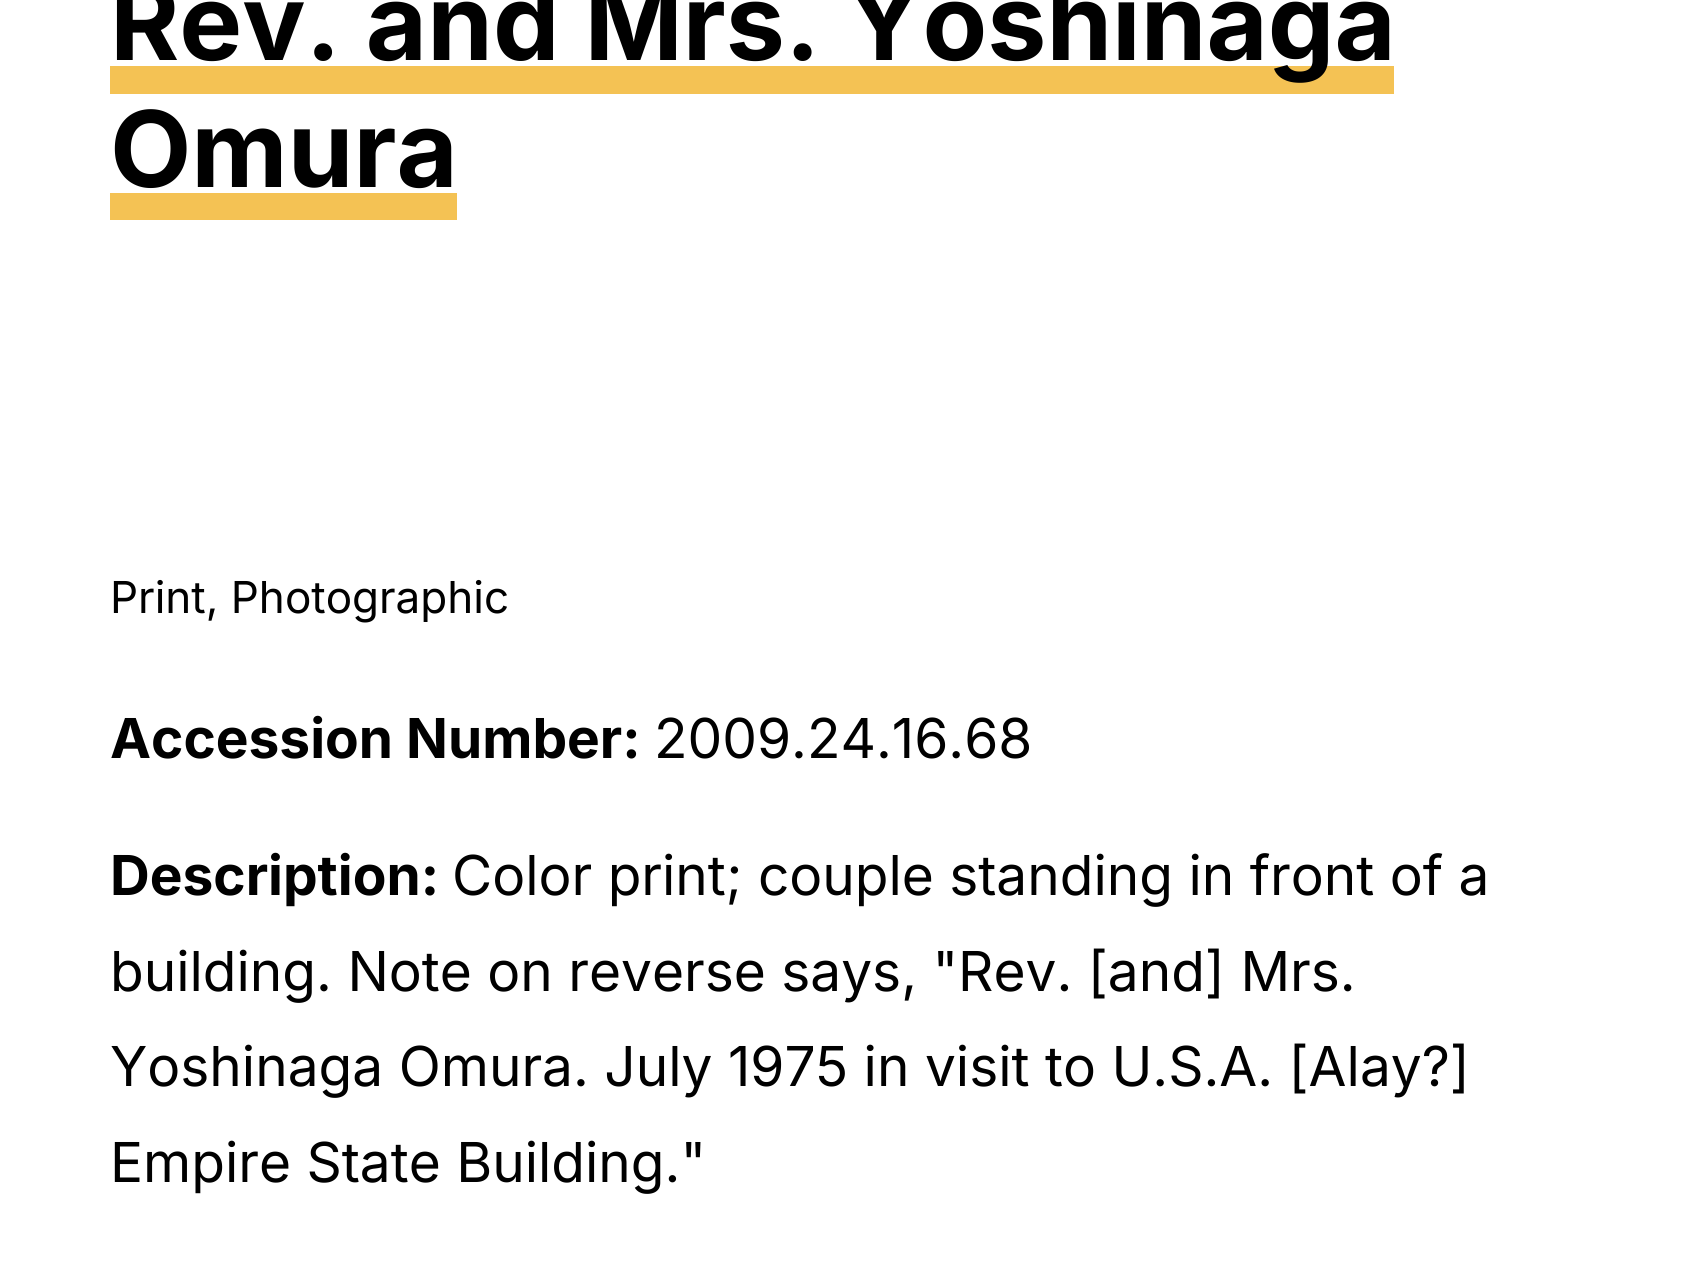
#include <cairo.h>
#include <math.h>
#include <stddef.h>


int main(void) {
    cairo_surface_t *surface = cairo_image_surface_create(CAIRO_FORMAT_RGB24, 1689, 1287);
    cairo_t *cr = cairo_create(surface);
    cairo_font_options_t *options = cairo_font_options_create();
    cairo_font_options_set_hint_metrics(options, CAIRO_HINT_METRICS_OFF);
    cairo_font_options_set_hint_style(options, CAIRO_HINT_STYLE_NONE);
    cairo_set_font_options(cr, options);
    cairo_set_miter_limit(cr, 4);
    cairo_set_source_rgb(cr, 1, 1, 1);
    cairo_paint(cr);
    cairo_set_source_rgb(cr, 0.957, 0.761, 0.329);
    cairo_rectangle(cr, 110, 66, 1284, 28);
    cairo_fill(cr);
    cairo_select_font_face(cr, "Inter", CAIRO_FONT_SLANT_NORMAL, CAIRO_FONT_WEIGHT_BOLD);
    cairo_set_font_size(cr, 105.6);
    cairo_set_source_rgb(cr, 0, 0, 0);
    cairo_move_to(cr, 110, 60);
    cairo_show_text(cr, "Rev. and Mrs. Yoshinaga");
    cairo_move_to(cr, 110, 187);
    cairo_show_text(cr, "Omura");
    cairo_set_source_rgb(cr, 0.957, 0.761, 0.329);
    cairo_rectangle(cr, 110, 193, 347, 27);
    cairo_fill(cr);
    cairo_select_font_face(cr, "Inter", CAIRO_FONT_SLANT_NORMAL, CAIRO_FONT_WEIGHT_NORMAL);
    cairo_set_font_size(cr, 44);
    cairo_set_source_rgb(cr, 0, 0, 0);
    cairo_move_to(cr, 110, 613);
    cairo_show_text(cr, "Print, Photographic");
    cairo_select_font_face(cr, "Inter", CAIRO_FONT_SLANT_NORMAL, CAIRO_FONT_WEIGHT_BOLD);
    cairo_set_font_size(cr, 55);
    cairo_move_to(cr, 110, 758);
    cairo_show_text(cr, "Accession Number:");
    cairo_select_font_face(cr, "Inter", CAIRO_FONT_SLANT_NORMAL, CAIRO_FONT_WEIGHT_NORMAL);
    cairo_move_to(cr, 654, 758);
    cairo_show_text(cr, "2009.24.16.68");
    cairo_select_font_face(cr, "Inter", CAIRO_FONT_SLANT_NORMAL, CAIRO_FONT_WEIGHT_BOLD);
    cairo_move_to(cr, 110, 895);
    cairo_show_text(cr, "Description:");
    cairo_select_font_face(cr, "Inter", CAIRO_FONT_SLANT_NORMAL, CAIRO_FONT_WEIGHT_NORMAL);
    cairo_move_to(cr, 452, 895);
    cairo_show_text(cr, "Color print; couple standing in front of a");
    cairo_move_to(cr, 110, 991);
    cairo_show_text(cr, "building. Note on reverse says, \"Rev. [and] Mrs.");
    cairo_move_to(cr, 110, 1086);
    cairo_show_text(cr, "Yoshinaga Omura. July 1975 in visit to U.S.A. [Alay?]");
    cairo_move_to(cr, 110, 1182);
    cairo_show_text(cr, "Empire State Building.\"");
    cairo_surface_write_to_png(surface, "page.png");
    cairo_font_options_destroy(options);
    cairo_destroy(cr);
    cairo_surface_destroy(surface);
    return 0;
}
